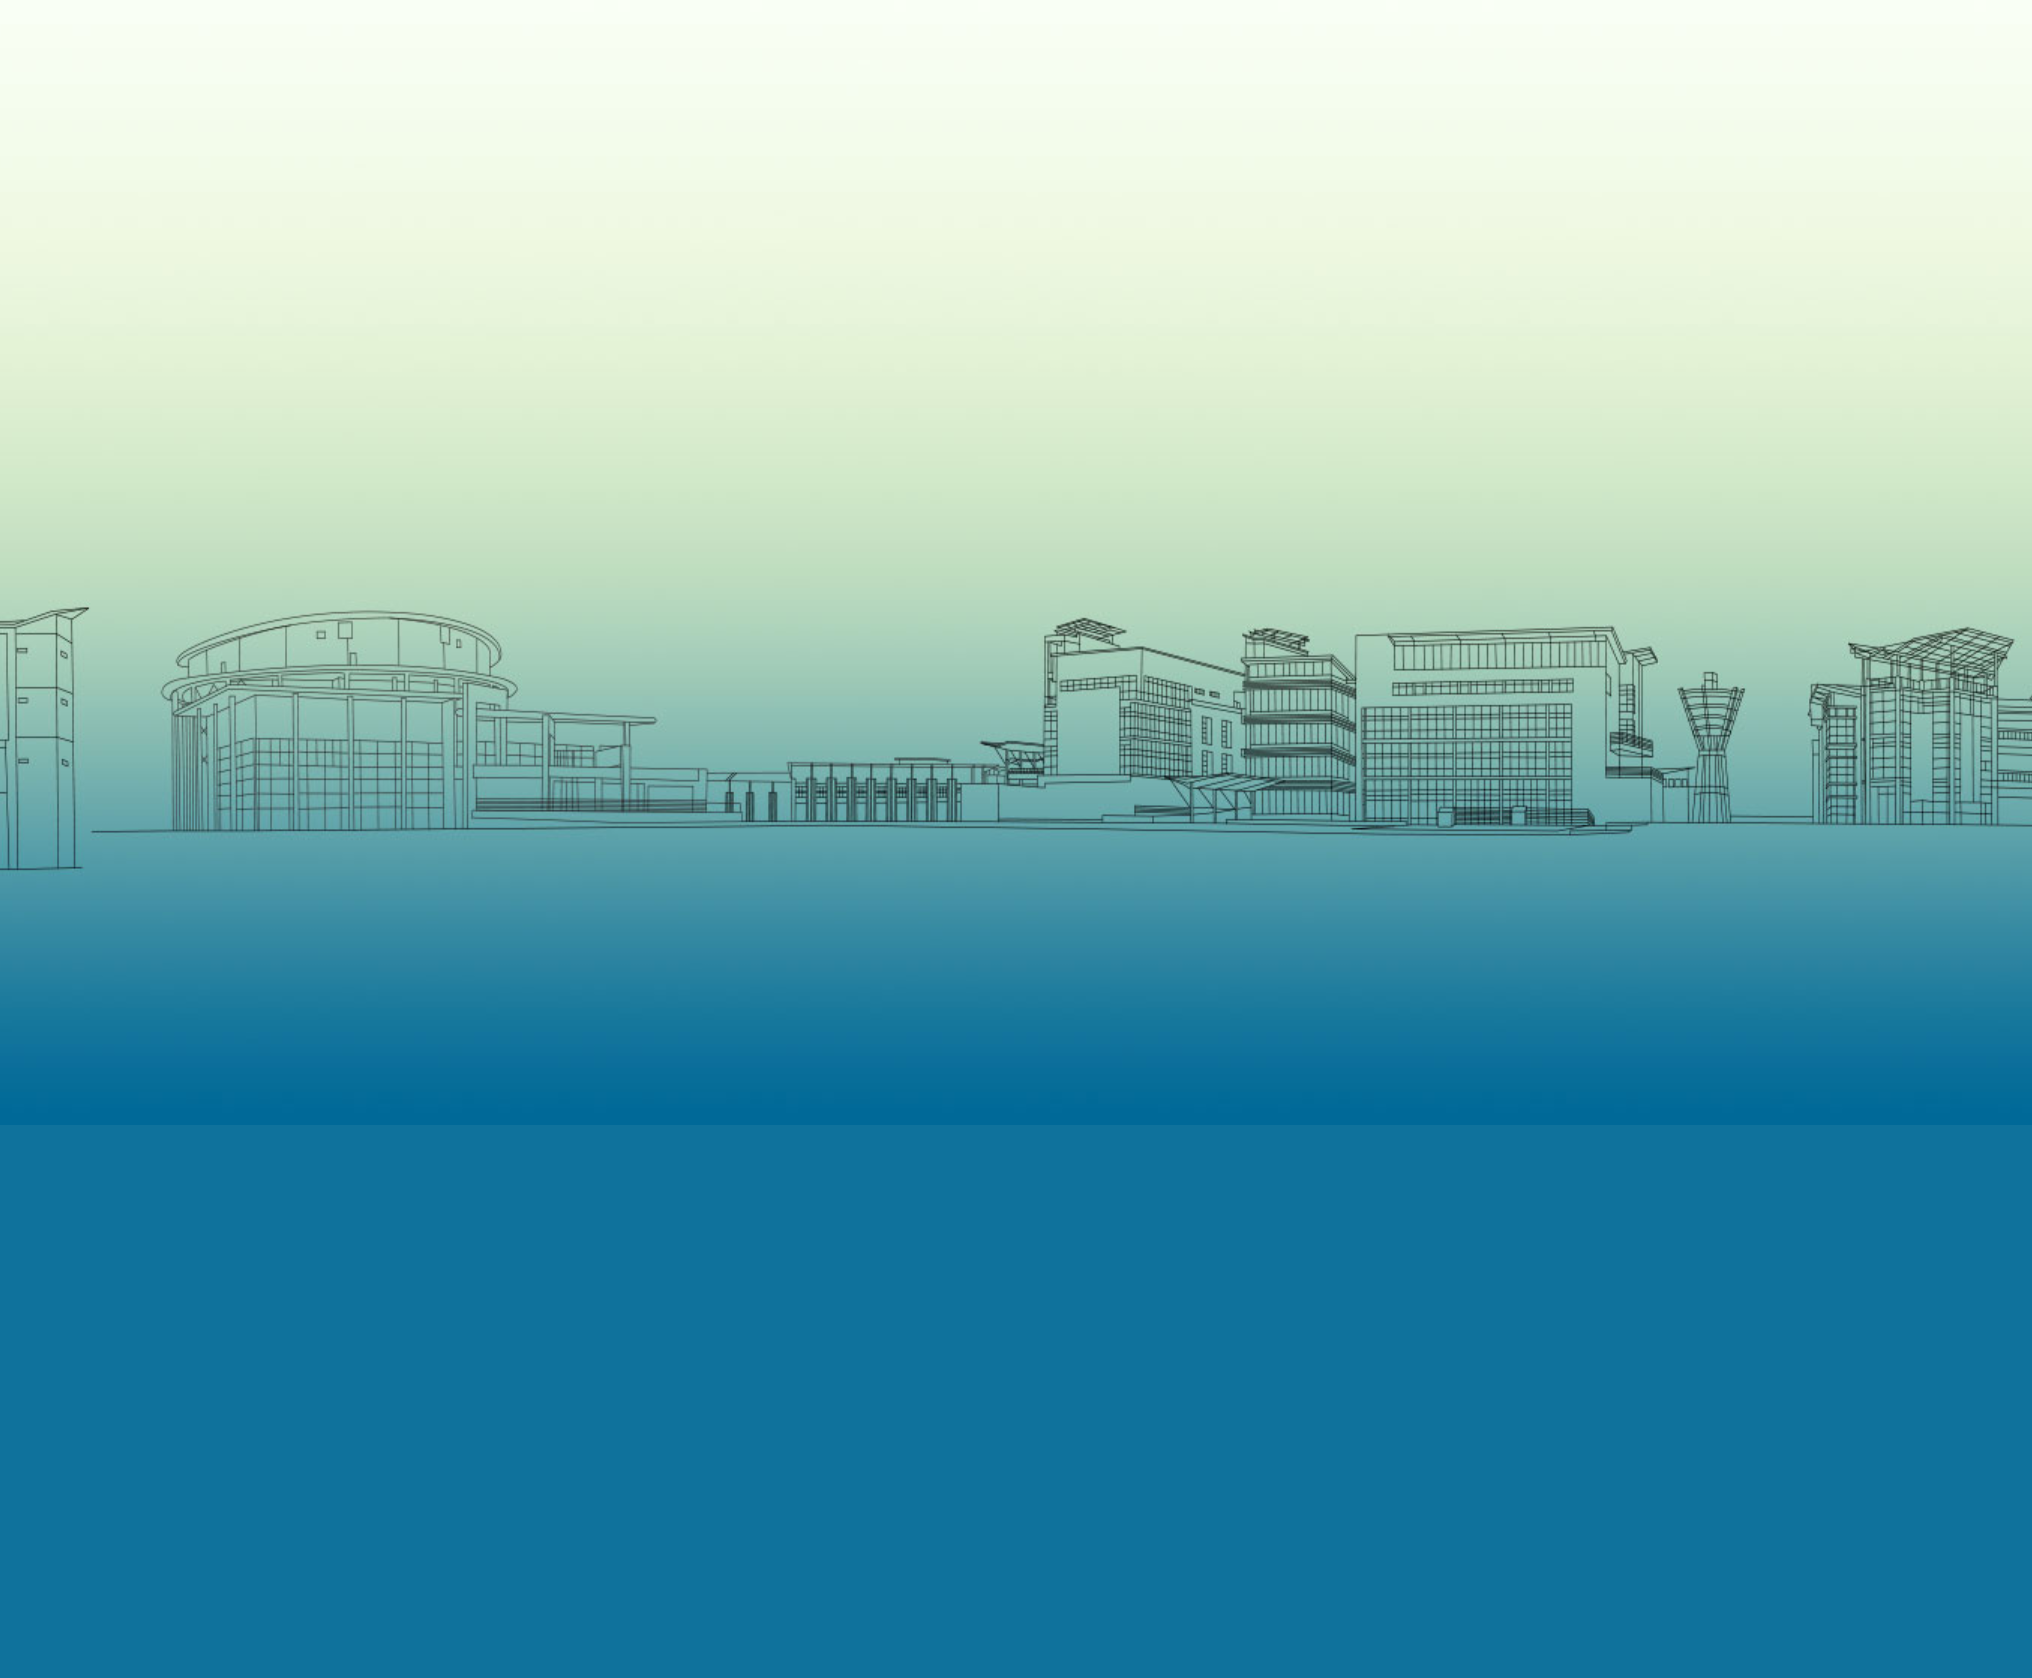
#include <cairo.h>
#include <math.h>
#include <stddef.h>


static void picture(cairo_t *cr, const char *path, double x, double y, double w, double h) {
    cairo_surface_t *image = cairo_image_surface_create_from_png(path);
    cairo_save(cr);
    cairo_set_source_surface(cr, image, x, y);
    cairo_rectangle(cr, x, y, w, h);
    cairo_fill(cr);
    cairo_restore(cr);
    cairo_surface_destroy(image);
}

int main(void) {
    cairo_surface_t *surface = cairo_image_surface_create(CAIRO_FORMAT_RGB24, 2032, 1678);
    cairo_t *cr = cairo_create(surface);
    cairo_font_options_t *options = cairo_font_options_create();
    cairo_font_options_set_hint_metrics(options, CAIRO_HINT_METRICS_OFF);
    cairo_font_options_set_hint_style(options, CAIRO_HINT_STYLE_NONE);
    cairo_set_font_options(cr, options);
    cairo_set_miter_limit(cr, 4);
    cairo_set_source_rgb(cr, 0.059, 0.447, 0.612);
    cairo_paint(cr);
    picture(cr, "img1.png", 0, 0, 2032, 1125);
    cairo_surface_write_to_png(surface, "page.png");
    cairo_font_options_destroy(options);
    cairo_destroy(cr);
    cairo_surface_destroy(surface);
    return 0;
}
